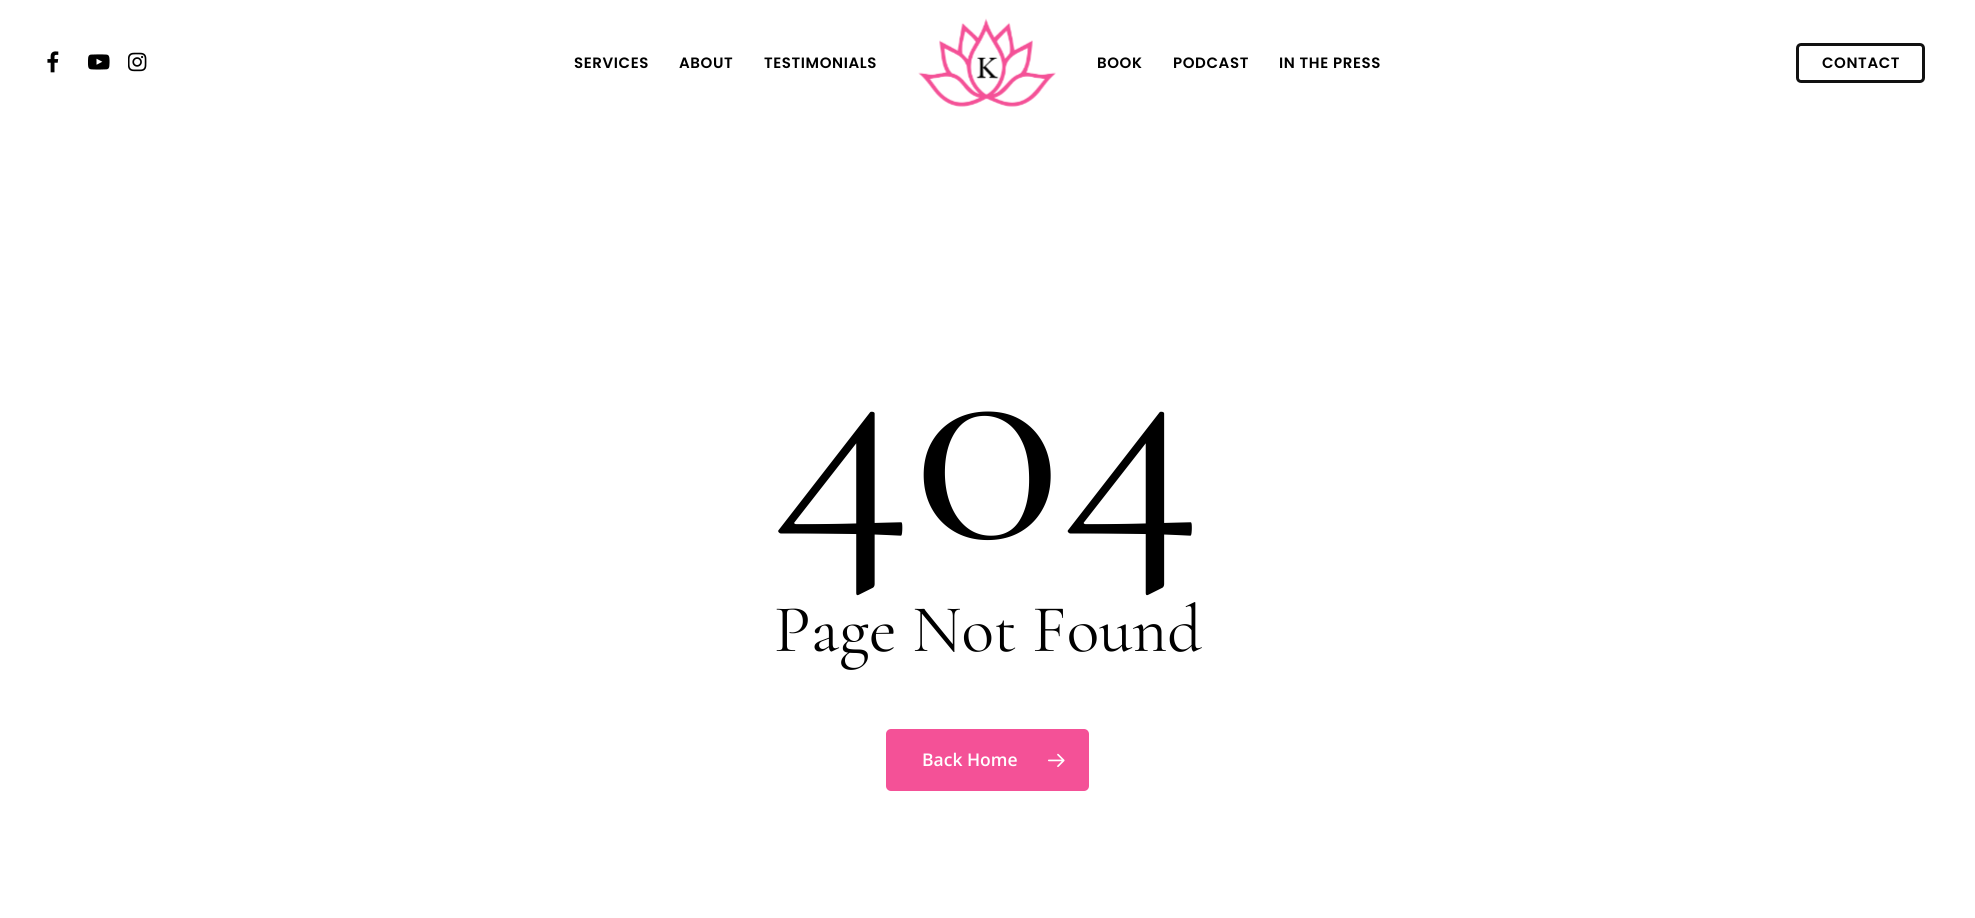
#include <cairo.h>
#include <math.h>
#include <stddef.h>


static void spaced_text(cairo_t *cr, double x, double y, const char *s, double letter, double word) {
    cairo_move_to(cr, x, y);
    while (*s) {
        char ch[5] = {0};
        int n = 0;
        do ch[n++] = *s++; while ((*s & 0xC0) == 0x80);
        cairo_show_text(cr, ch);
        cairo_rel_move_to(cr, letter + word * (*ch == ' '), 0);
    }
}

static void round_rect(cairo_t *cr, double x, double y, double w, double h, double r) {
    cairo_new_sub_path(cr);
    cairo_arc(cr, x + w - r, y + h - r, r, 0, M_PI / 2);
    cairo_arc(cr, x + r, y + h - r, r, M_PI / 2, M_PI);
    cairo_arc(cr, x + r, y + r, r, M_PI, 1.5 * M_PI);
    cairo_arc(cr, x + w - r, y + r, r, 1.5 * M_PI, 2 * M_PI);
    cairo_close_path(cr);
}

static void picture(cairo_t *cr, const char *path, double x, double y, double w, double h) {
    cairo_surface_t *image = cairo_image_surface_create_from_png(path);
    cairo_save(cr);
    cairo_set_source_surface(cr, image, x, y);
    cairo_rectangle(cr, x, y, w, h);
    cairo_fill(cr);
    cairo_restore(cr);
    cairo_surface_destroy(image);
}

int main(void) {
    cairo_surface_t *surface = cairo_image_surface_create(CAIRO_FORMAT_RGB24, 1975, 918);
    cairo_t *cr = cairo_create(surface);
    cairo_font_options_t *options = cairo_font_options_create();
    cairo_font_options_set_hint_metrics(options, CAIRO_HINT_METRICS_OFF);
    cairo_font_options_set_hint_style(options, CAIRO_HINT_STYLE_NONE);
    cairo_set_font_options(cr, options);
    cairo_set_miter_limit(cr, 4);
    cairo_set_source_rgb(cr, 1, 1, 1);
    cairo_paint(cr);
    picture(cr, "img1.png", 918, 18, 138, 89);
    picture(cr, "img2.png", 47, 51, 12, 22);
    picture(cr, "img3.png", 88, 54, 22, 16);
    picture(cr, "img4.png", 128, 52, 19, 20);
    cairo_select_font_face(cr, "Poppins SemiBold", CAIRO_FONT_SLANT_NORMAL, CAIRO_FONT_WEIGHT_NORMAL);
    cairo_set_font_size(cr, 15);
    cairo_set_source_rgb(cr, 0, 0, 0);
    spaced_text(cr, 574, 68, "SERVICES", 0.6, 0);
    spaced_text(cr, 679, 68, "ABOUT", 0.6, 0);
    spaced_text(cr, 764, 68, "TESTIMONIALS", 0.6, 0);
    spaced_text(cr, 1097, 68, "BOOK", 0.6, 0);
    spaced_text(cr, 1173, 68, "PODCAST", 0.6, 0);
    spaced_text(cr, 1279, 68, "IN THE PRESS", 0.6, 0);
    round_rect(cr, 1797.5, 44.5, 126, 37, 3.5);
    cairo_set_source_rgb(cr, 0.067, 0.067, 0.067);
    cairo_set_line_width(cr, 3);
    cairo_stroke(cr);
    cairo_set_source_rgb(cr, 0, 0, 0);
    spaced_text(cr, 1822, 68, "CONTACT", 0.6, 0);
    cairo_select_font_face(cr, "Cormorant Garamond", CAIRO_FONT_SLANT_NORMAL, CAIRO_FONT_WEIGHT_NORMAL);
    cairo_set_font_size(cr, 312);
    cairo_move_to(cr, 772, 536);
    cairo_show_text(cr, "404");
    cairo_set_font_size(cr, 67.5);
    cairo_move_to(cr, 774, 651);
    cairo_show_text(cr, "Page Not Found");
    cairo_set_source_rgb(cr, 0.957, 0.318, 0.592);
    round_rect(cr, 886, 729, 203, 62, 5);
    cairo_fill(cr);
    cairo_select_font_face(cr, "Open Sans SemiBold", CAIRO_FONT_SLANT_NORMAL, CAIRO_FONT_WEIGHT_NORMAL);
    cairo_set_font_size(cr, 17.5);
    cairo_set_source_rgb(cr, 1, 1, 1);
    cairo_move_to(cr, 922, 766);
    cairo_show_text(cr, "Back Home");
    picture(cr, "img5.png", 1048, 753, 17, 14);
    cairo_surface_write_to_png(surface, "page.png");
    cairo_font_options_destroy(options);
    cairo_destroy(cr);
    cairo_surface_destroy(surface);
    return 0;
}
